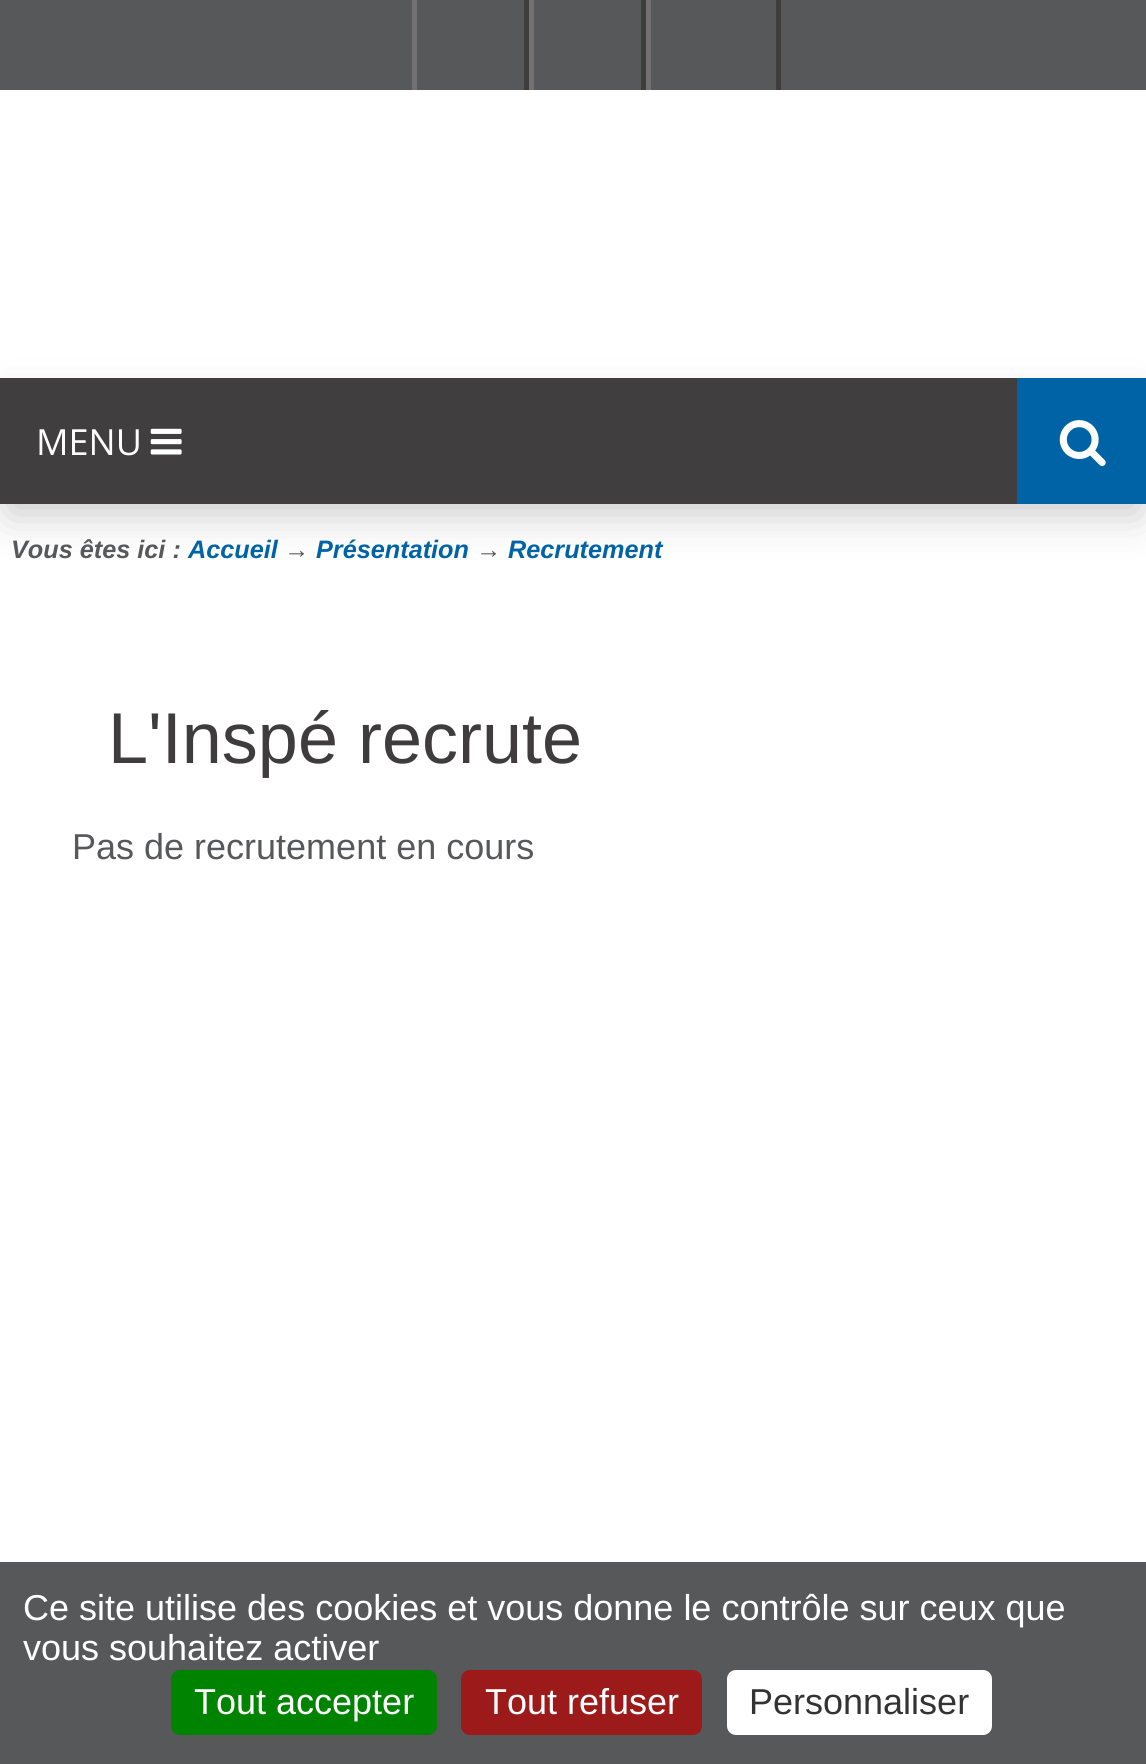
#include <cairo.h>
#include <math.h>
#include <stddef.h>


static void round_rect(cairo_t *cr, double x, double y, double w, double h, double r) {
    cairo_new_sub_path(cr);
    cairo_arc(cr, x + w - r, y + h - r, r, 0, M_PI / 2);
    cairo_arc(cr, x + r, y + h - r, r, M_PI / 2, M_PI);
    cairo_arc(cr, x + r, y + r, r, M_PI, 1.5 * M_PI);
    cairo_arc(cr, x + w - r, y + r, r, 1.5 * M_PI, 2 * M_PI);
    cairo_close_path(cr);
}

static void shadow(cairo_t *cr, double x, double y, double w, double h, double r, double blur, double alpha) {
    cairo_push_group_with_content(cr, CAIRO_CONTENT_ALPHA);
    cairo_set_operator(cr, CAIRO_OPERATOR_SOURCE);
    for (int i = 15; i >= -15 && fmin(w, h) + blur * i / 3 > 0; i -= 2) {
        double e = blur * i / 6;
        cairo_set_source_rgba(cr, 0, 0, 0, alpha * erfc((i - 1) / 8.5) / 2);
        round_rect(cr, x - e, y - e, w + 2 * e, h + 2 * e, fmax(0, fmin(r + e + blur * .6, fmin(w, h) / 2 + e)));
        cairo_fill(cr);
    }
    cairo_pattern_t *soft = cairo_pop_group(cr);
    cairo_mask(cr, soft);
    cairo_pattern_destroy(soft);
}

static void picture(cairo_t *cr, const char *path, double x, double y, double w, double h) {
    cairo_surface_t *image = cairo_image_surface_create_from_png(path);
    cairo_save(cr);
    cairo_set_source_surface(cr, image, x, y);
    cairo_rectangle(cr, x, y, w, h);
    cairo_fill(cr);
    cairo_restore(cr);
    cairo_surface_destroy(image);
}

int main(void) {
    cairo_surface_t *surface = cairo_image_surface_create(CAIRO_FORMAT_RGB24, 1146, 1764);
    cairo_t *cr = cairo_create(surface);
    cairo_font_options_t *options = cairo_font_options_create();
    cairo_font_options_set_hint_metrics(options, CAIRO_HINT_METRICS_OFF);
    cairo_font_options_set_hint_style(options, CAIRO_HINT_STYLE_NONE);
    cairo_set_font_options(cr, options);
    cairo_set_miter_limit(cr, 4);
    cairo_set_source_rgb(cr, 1, 1, 1);
    cairo_paint(cr);
    cairo_set_source_rgb(cr, 0.341, 0.345, 0.353);
    cairo_rectangle(cr, 0, 0, 1146, 90);
    cairo_fill(cr);
    cairo_set_source_rgb(cr, 0.243, 0.239, 0.231);
    cairo_rectangle(cr, 524, 0, 5, 90);
    cairo_fill(cr);
    cairo_set_source_rgb(cr, 0.447, 0.439, 0.443);
    cairo_rectangle(cr, 412, 0, 5, 90);
    cairo_fill(cr);
    cairo_set_source_rgb(cr, 0.243, 0.239, 0.231);
    cairo_rectangle(cr, 641, 0, 5, 90);
    cairo_fill(cr);
    cairo_set_source_rgb(cr, 0.447, 0.439, 0.443);
    cairo_rectangle(cr, 529, 0, 5, 90);
    cairo_fill(cr);
    cairo_set_source_rgb(cr, 0.243, 0.239, 0.231);
    cairo_rectangle(cr, 776, 0, 5, 90);
    cairo_fill(cr);
    cairo_set_source_rgb(cr, 0.447, 0.439, 0.443);
    cairo_rectangle(cr, 646, 0, 5, 90);
    cairo_fill(cr);
    cairo_set_source_rgb(cr, 0.78, 0.78, 0.78);
    shadow(cr, 9, 405, 1130, 108, 0, 21.5, 1);
    cairo_set_source_rgb(cr, 0.251, 0.243, 0.247);
    cairo_rectangle(cr, 0, 378, 1017, 126);
    cairo_fill(cr);
    cairo_select_font_face(cr, "Open Sans", CAIRO_FONT_SLANT_NORMAL, CAIRO_FONT_WEIGHT_NORMAL);
    cairo_set_font_size(cr, 36);
    cairo_set_source_rgb(cr, 1, 1, 1);
    cairo_move_to(cr, 36, 455);
    cairo_show_text(cr, "MENU");
    picture(cr, "img1.png", 150, 428, 32, 27);
    cairo_set_source_rgb(cr, 0, 0.388, 0.647);
    cairo_rectangle(cr, 1017, 378, 129, 126);
    cairo_fill(cr);
    picture(cr, "img2.png", 1059, 420, 47, 47);
    cairo_select_font_face(cr, "Liberation Sans", CAIRO_FONT_SLANT_ITALIC, CAIRO_FONT_WEIGHT_BOLD);
    cairo_set_font_size(cr, 25.25);
    cairo_set_source_rgb(cr, 0.341, 0.345, 0.353);
    cairo_move_to(cr, 11, 558);
    cairo_show_text(cr, "Vous êtes ici :");
    cairo_set_source_rgb(cr, 0, 0.388, 0.647);
    cairo_move_to(cr, 188, 558);
    cairo_show_text(cr, "Accueil");
    cairo_set_source_rgb(cr, 0.341, 0.345, 0.353);
    cairo_move_to(cr, 284, 558);
    cairo_show_text(cr, "→");
    cairo_set_source_rgb(cr, 0, 0.388, 0.647);
    cairo_move_to(cr, 316, 558);
    cairo_show_text(cr, "Présentation");
    cairo_set_source_rgb(cr, 0.341, 0.345, 0.353);
    cairo_move_to(cr, 476, 558);
    cairo_show_text(cr, "→");
    cairo_set_source_rgb(cr, 0, 0.388, 0.647);
    cairo_move_to(cr, 508, 558);
    cairo_show_text(cr, "Recrutement");
    cairo_select_font_face(cr, "Liberation Sans", CAIRO_FONT_SLANT_NORMAL, CAIRO_FONT_WEIGHT_NORMAL);
    cairo_set_font_size(cr, 72);
    cairo_set_source_rgb(cr, 0.243, 0.235, 0.239);
    cairo_move_to(cr, 108, 763);
    cairo_show_text(cr, "L'Inspé recrute");
    cairo_set_font_size(cr, 36);
    cairo_set_source_rgb(cr, 0.341, 0.345, 0.353);
    cairo_move_to(cr, 72, 859);
    cairo_show_text(cr, "Pas de recrutement en cours");
    cairo_rectangle(cr, 0, 1562, 1146, 202);
    cairo_fill(cr);
    cairo_set_source_rgb(cr, 1, 1, 1);
    cairo_move_to(cr, 23, 1620);
    cairo_show_text(cr, "Ce site utilise des cookies et vous donne le contrôle sur ceux que");
    cairo_move_to(cr, 23, 1660);
    cairo_show_text(cr, "vous souhaitez activer");
    cairo_set_source_rgb(cr, 0, 0.514, 0);
    round_rect(cr, 171, 1670, 266, 65, 9);
    cairo_fill(cr);
    cairo_set_source_rgb(cr, 1, 1, 1);
    cairo_move_to(cr, 194, 1714);
    cairo_show_text(cr, "Tout accepter");
    cairo_set_source_rgb(cr, 0.612, 0.102, 0.102);
    round_rect(cr, 461, 1670, 241, 65, 9);
    cairo_fill(cr);
    cairo_set_source_rgb(cr, 1, 1, 1);
    cairo_move_to(cr, 485, 1714);
    cairo_show_text(cr, "Tout refuser");
    round_rect(cr, 727, 1670, 265, 65, 9);
    cairo_fill(cr);
    cairo_set_source_rgb(cr, 0.2, 0.2, 0.2);
    cairo_move_to(cr, 749, 1714);
    cairo_show_text(cr, "Personnaliser");
    cairo_surface_write_to_png(surface, "page.png");
    cairo_font_options_destroy(options);
    cairo_destroy(cr);
    cairo_surface_destroy(surface);
    return 0;
}
